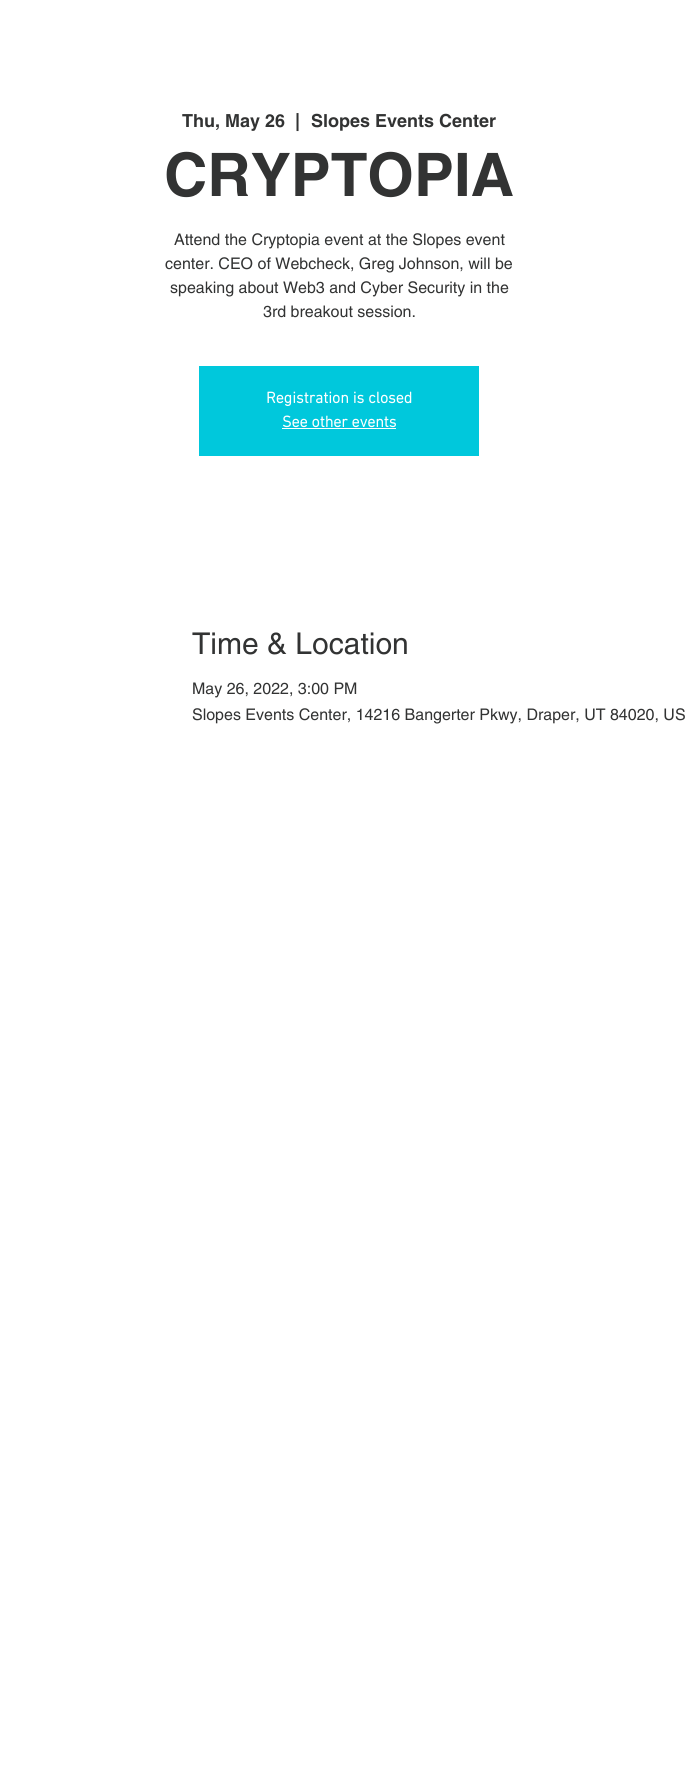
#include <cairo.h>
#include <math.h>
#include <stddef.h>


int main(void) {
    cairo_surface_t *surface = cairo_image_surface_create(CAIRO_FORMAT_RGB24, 687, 1786);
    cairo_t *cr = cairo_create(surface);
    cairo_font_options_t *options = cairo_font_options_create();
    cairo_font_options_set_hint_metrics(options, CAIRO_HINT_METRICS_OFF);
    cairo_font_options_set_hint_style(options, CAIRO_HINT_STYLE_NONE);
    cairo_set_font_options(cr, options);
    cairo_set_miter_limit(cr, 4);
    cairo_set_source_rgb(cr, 1, 1, 1);
    cairo_paint(cr);
    cairo_select_font_face(cr, "helvetica", CAIRO_FONT_SLANT_NORMAL, CAIRO_FONT_WEIGHT_BOLD);
    cairo_set_font_size(cr, 18);
    cairo_set_source_rgb(cr, 0.196, 0.2, 0.2);
    cairo_move_to(cr, 182, 127);
    cairo_show_text(cr, "Thu, May 26");
    cairo_move_to(cr, 295, 127);
    cairo_show_text(cr, "|");
    cairo_move_to(cr, 311, 127);
    cairo_show_text(cr, "Slopes Events Center");
    cairo_set_font_size(cr, 60);
    cairo_move_to(cr, 164, 196);
    cairo_show_text(cr, "CRYPTOPIA");
    cairo_select_font_face(cr, "helvetica", CAIRO_FONT_SLANT_NORMAL, CAIRO_FONT_WEIGHT_NORMAL);
    cairo_set_font_size(cr, 16);
    cairo_move_to(cr, 174, 245);
    cairo_show_text(cr, "Attend the Cryptopia event at the Slopes event");
    cairo_move_to(cr, 165, 269);
    cairo_show_text(cr, "center. CEO of Webcheck, Greg Johnson, will be");
    cairo_move_to(cr, 170, 293);
    cairo_show_text(cr, "speaking about Web3 and Cyber Security in the");
    cairo_move_to(cr, 263, 317);
    cairo_show_text(cr, "3rd breakout session.");
    cairo_set_source_rgb(cr, 0, 0.784, 0.863);
    cairo_rectangle(cr, 199, 366, 280, 90);
    cairo_fill(cr);
    cairo_select_font_face(cr, "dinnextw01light", CAIRO_FONT_SLANT_NORMAL, CAIRO_FONT_WEIGHT_BOLD);
    cairo_set_source_rgb(cr, 1, 1, 1);
    cairo_move_to(cr, 266, 403);
    cairo_show_text(cr, "Registration is closed");
    cairo_move_to(cr, 282, 427);
    cairo_show_text(cr, "See other events");
    cairo_rectangle(cr, 282, 428, 114, 1);
    cairo_fill(cr);
    cairo_select_font_face(cr, "helvetica", CAIRO_FONT_SLANT_NORMAL, CAIRO_FONT_WEIGHT_NORMAL);
    cairo_set_font_size(cr, 30);
    cairo_set_source_rgb(cr, 0.196, 0.2, 0.2);
    cairo_move_to(cr, 192, 654);
    cairo_show_text(cr, "Time & Location");
    cairo_set_font_size(cr, 16);
    cairo_move_to(cr, 192, 694);
    cairo_show_text(cr, "May 26, 2022, 3:00 PM");
    cairo_move_to(cr, 192, 720);
    cairo_show_text(cr, "Slopes Events Center, 14216 Bangerter Pkwy, Draper, UT 84020, US");
    cairo_surface_write_to_png(surface, "page.png");
    cairo_font_options_destroy(options);
    cairo_destroy(cr);
    cairo_surface_destroy(surface);
    return 0;
}
